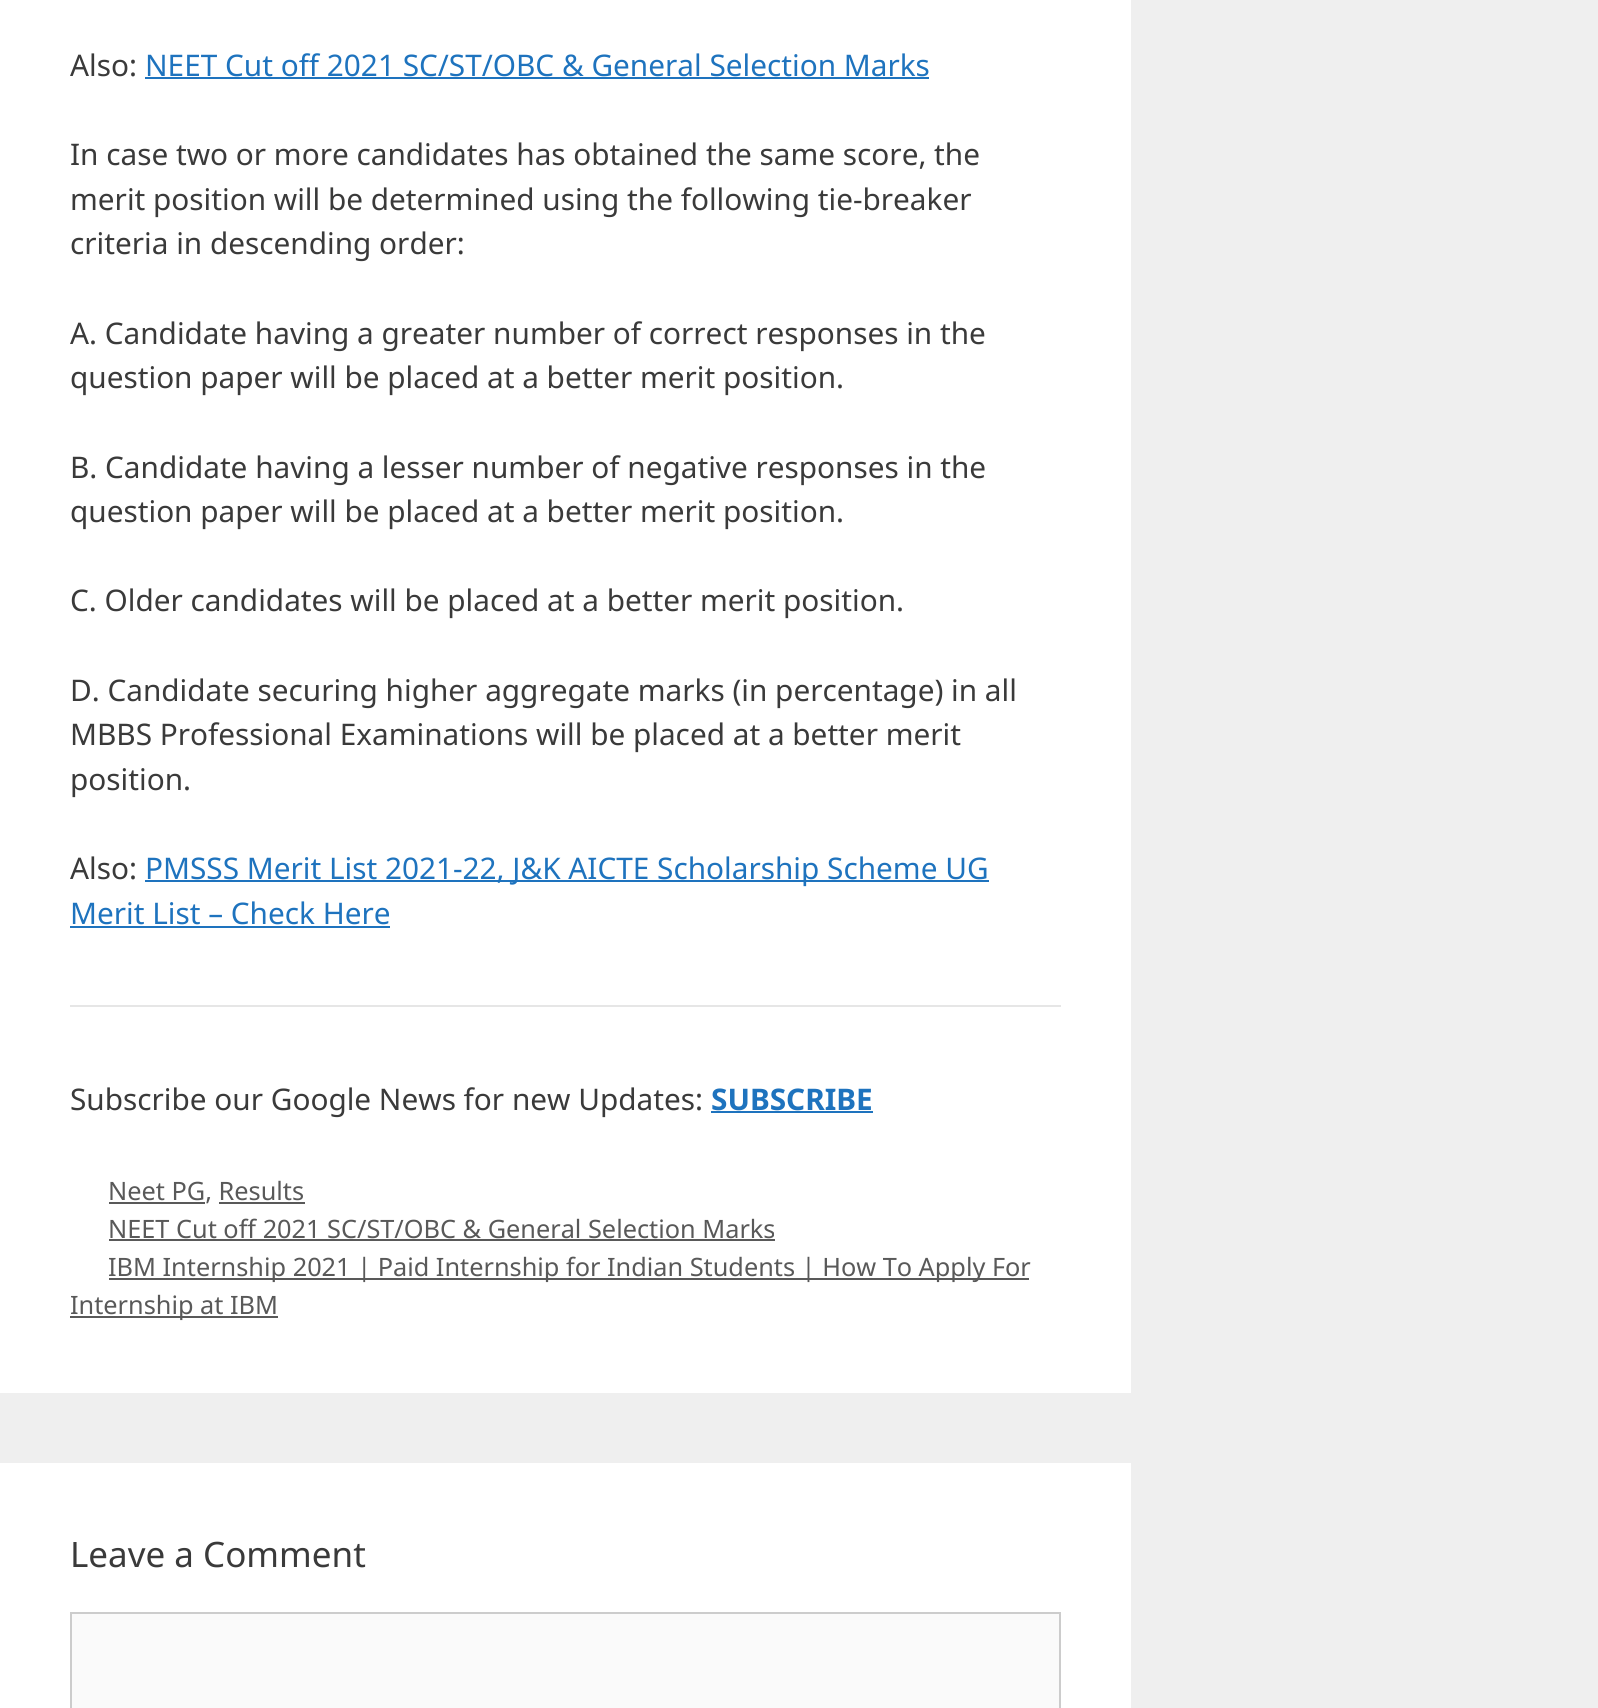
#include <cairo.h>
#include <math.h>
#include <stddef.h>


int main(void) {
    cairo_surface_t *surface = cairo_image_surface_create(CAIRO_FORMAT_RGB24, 1598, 1708);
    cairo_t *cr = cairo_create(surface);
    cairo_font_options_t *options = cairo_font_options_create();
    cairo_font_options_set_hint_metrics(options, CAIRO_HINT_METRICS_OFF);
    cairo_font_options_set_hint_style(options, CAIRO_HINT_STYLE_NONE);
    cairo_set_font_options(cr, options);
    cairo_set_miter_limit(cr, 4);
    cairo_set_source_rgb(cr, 0.937, 0.937, 0.937);
    cairo_paint(cr);
    cairo_set_source_rgb(cr, 1, 1, 1);
    cairo_rectangle(cr, 0, 0, 1131, 1393);
    cairo_fill(cr);
    cairo_select_font_face(cr, "Noto Sans", CAIRO_FONT_SLANT_NORMAL, CAIRO_FONT_WEIGHT_NORMAL);
    cairo_set_font_size(cr, 29.75);
    cairo_set_source_rgb(cr, 0.227, 0.227, 0.227);
    cairo_move_to(cr, 70, 76);
    cairo_show_text(cr, "Also:");
    cairo_set_source_rgb(cr, 0.118, 0.451, 0.745);
    cairo_move_to(cr, 145, 76);
    cairo_show_text(cr, "NEET Cut off 2021 SC/ST/OBC & General Selection Marks");
    cairo_rectangle(cr, 145, 77, 784, 2);
    cairo_fill(cr);
    cairo_set_source_rgb(cr, 0.227, 0.227, 0.227);
    cairo_move_to(cr, 70, 165);
    cairo_show_text(cr, "In case two or more candidates has obtained the same score, the");
    cairo_move_to(cr, 70, 210);
    cairo_show_text(cr, "merit position will be determined using the following tie-breaker");
    cairo_move_to(cr, 70, 254);
    cairo_show_text(cr, "criteria in descending order:");
    cairo_move_to(cr, 70, 344);
    cairo_show_text(cr, "A. Candidate having a greater number of correct responses in the");
    cairo_move_to(cr, 70, 388);
    cairo_show_text(cr, "question paper will be placed at a better merit position.");
    cairo_move_to(cr, 70, 478);
    cairo_show_text(cr, "B. Candidate having a lesser number of negative responses in the");
    cairo_move_to(cr, 70, 522);
    cairo_show_text(cr, "question paper will be placed at a better merit position.");
    cairo_move_to(cr, 70, 611);
    cairo_show_text(cr, "C. Older candidates will be placed at a better merit position.");
    cairo_move_to(cr, 70, 701);
    cairo_show_text(cr, "D. Candidate securing higher aggregate marks (in percentage) in all");
    cairo_move_to(cr, 70, 745);
    cairo_show_text(cr, "MBBS Professional Examinations will be placed at a better merit");
    cairo_move_to(cr, 70, 790);
    cairo_show_text(cr, "position.");
    cairo_move_to(cr, 70, 879);
    cairo_show_text(cr, "Also:");
    cairo_set_source_rgb(cr, 0.118, 0.451, 0.745);
    cairo_rectangle(cr, 145, 880, 844, 2);
    cairo_fill(cr);
    cairo_move_to(cr, 145, 879);
    cairo_show_text(cr, "PMSSS Merit List 2021-22, J&K AICTE Scholarship Scheme UG");
    cairo_move_to(cr, 70, 924);
    cairo_show_text(cr, "Merit List – Check Here");
    cairo_rectangle(cr, 70, 926, 320, 2);
    cairo_fill(cr);
    cairo_set_source_rgb(cr, 0.902, 0.902, 0.902);
    cairo_rectangle(cr, 70, 1005, 991, 2);
    cairo_fill(cr);
    cairo_set_source_rgb(cr, 0.227, 0.227, 0.227);
    cairo_move_to(cr, 70, 1110);
    cairo_show_text(cr, "Subscribe our Google News for new Updates:");
    cairo_select_font_face(cr, "Noto Sans", CAIRO_FONT_SLANT_NORMAL, CAIRO_FONT_WEIGHT_BOLD);
    cairo_set_source_rgb(cr, 0.118, 0.451, 0.745);
    cairo_move_to(cr, 711, 1110);
    cairo_show_text(cr, "SUBSCRIBE");
    cairo_rectangle(cr, 711, 1111, 162, 2);
    cairo_fill(cr);
    cairo_set_source_rgb(cr, 0.349, 0.349, 0.349);
    cairo_rectangle(cr, 109, 1202, 96, 2);
    cairo_fill(cr);
    cairo_select_font_face(cr, "Noto Sans", CAIRO_FONT_SLANT_NORMAL, CAIRO_FONT_WEIGHT_NORMAL);
    cairo_set_font_size(cr, 25.3);
    cairo_move_to(cr, 108, 1200);
    cairo_show_text(cr, "Neet PG, Results");
    cairo_rectangle(cr, 219, 1202, 86, 2);
    cairo_fill(cr);
    cairo_move_to(cr, 108, 1238);
    cairo_show_text(cr, "NEET Cut off 2021 SC/ST/OBC & General Selection Marks");
    cairo_rectangle(cr, 109, 1239, 666, 2);
    cairo_fill(cr);
    cairo_rectangle(cr, 109, 1278, 920, 2);
    cairo_fill(cr);
    cairo_move_to(cr, 108, 1276);
    cairo_show_text(cr, "IBM Internship 2021 | Paid Internship for Indian Students | How To Apply For");
    cairo_rectangle(cr, 70, 1316, 208, 2);
    cairo_fill(cr);
    cairo_move_to(cr, 70, 1314);
    cairo_show_text(cr, "Internship at IBM");
    cairo_set_source_rgb(cr, 1, 1, 1);
    cairo_rectangle(cr, 0, 1463, 1131, 245);
    cairo_fill(cr);
    cairo_set_font_size(cr, 35);
    cairo_set_source_rgb(cr, 0.227, 0.227, 0.227);
    cairo_move_to(cr, 70, 1567);
    cairo_show_text(cr, "Leave a Comment");
    cairo_set_source_rgb(cr, 0.98, 0.98, 0.98);
    cairo_rectangle(cr, 71, 1613, 989, 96);
    cairo_fill_preserve(cr);
    cairo_set_source_rgb(cr, 0.8, 0.8, 0.8);
    cairo_stroke(cr);
    cairo_surface_write_to_png(surface, "page.png");
    cairo_font_options_destroy(options);
    cairo_destroy(cr);
    cairo_surface_destroy(surface);
    return 0;
}
